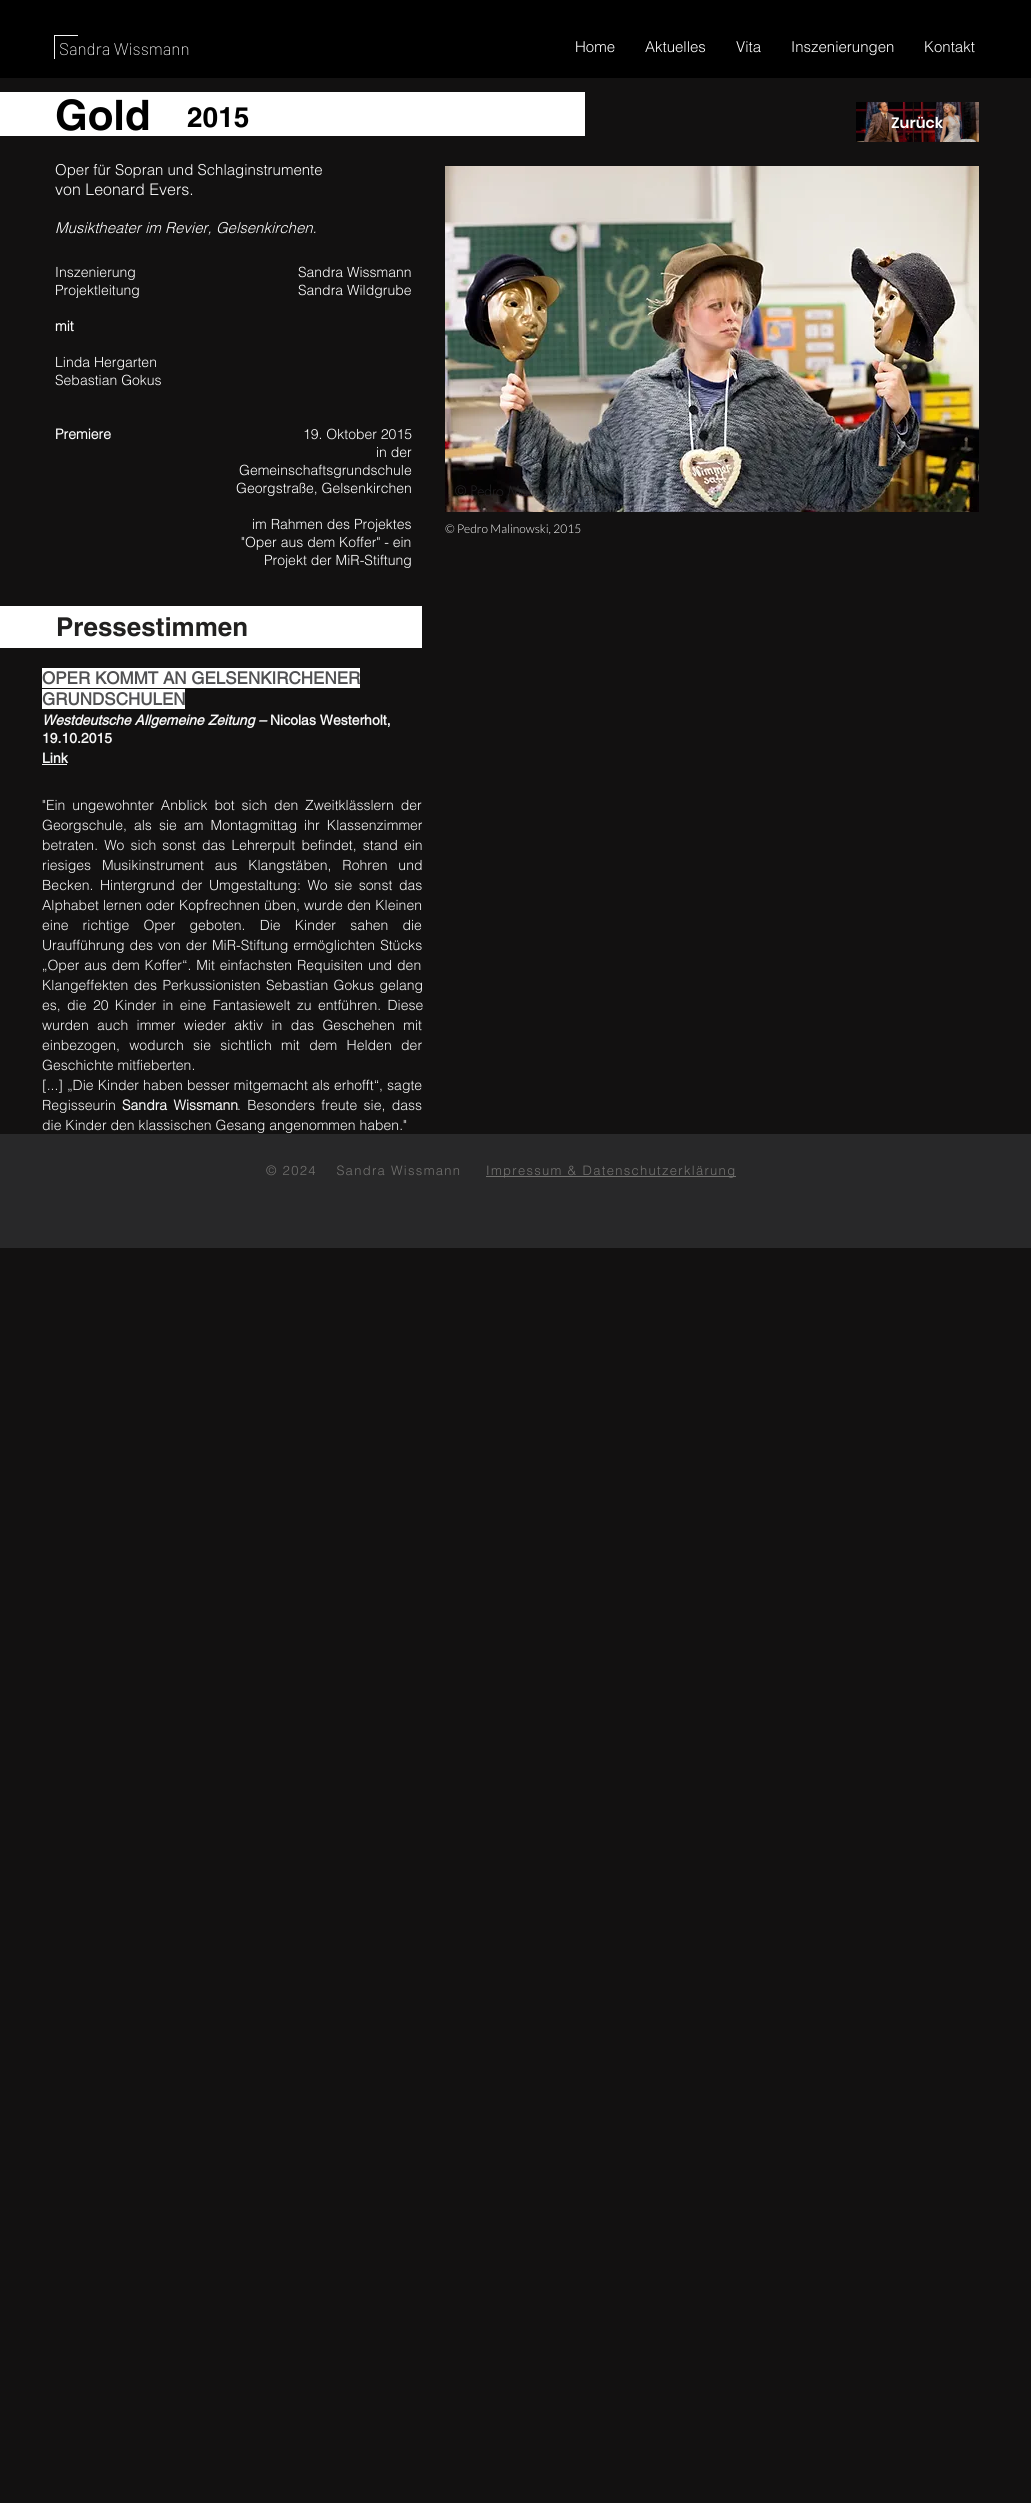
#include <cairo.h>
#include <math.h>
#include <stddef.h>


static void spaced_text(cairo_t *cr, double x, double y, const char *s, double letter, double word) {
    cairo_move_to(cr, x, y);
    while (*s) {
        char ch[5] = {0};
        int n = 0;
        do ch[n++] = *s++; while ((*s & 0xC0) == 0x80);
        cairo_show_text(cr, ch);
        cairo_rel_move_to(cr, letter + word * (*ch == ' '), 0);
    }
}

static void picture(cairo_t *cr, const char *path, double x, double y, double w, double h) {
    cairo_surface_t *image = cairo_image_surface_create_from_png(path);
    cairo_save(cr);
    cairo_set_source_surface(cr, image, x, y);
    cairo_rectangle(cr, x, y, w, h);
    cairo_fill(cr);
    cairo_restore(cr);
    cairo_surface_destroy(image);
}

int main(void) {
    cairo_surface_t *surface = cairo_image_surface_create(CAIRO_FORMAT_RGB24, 1031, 2503);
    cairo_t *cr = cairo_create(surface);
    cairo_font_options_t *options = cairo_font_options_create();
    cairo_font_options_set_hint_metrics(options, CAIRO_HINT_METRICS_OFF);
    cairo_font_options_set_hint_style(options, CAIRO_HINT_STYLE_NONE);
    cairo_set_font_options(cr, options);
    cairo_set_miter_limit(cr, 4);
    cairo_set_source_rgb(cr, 0.071, 0.067, 0.067);
    cairo_paint(cr);
    cairo_set_source_rgb(cr, 0, 0, 0);
    cairo_rectangle(cr, 0, 0, 1031, 78);
    cairo_fill(cr);
    cairo_set_source_rgb(cr, 0.961, 0.961, 0.961);
    cairo_rectangle(cr, 54, 35, 24, 1);
    cairo_fill(cr);
    cairo_rectangle(cr, 54, 36, 1, 23);
    cairo_fill(cr);
    cairo_select_font_face(cr, "helvetica Light", CAIRO_FONT_SLANT_NORMAL, CAIRO_FONT_WEIGHT_NORMAL);
    cairo_set_font_size(cr, 15);
    cairo_set_source_rgb(cr, 1, 1, 1);
    cairo_move_to(cr, 575, 52);
    cairo_show_text(cr, "Home");
    cairo_move_to(cr, 645, 52);
    cairo_show_text(cr, "Aktuelles");
    cairo_move_to(cr, 736, 52);
    cairo_show_text(cr, "Vita");
    cairo_move_to(cr, 791, 52);
    cairo_show_text(cr, "Inszenierungen");
    cairo_move_to(cr, 924, 52);
    cairo_show_text(cr, "Kontakt");
    cairo_select_font_face(cr, "Barlow ExtraLight", CAIRO_FONT_SLANT_NORMAL, CAIRO_FONT_WEIGHT_NORMAL);
    cairo_set_font_size(cr, 17);
    cairo_set_source_rgb(cr, 0.961, 0.961, 0.961);
    cairo_move_to(cr, 59, 55);
    cairo_show_text(cr, "Sandra Wissmann");
    cairo_set_source_rgb(cr, 1, 1, 1);
    cairo_rectangle(cr, 0, 92, 585, 44);
    cairo_fill(cr);
    cairo_select_font_face(cr, "helvetica", CAIRO_FONT_SLANT_NORMAL, CAIRO_FONT_WEIGHT_BOLD);
    cairo_set_font_size(cr, 42);
    cairo_set_source_rgb(cr, 0, 0, 0);
    cairo_move_to(cr, 55, 130);
    cairo_show_text(cr, "Gold");
    cairo_set_font_size(cr, 28);
    cairo_move_to(cr, 187, 127);
    cairo_show_text(cr, "2015");
    picture(cr, "img1.png", 856, 102, 123, 40);
    cairo_select_font_face(cr, "Poppins SemiBold", CAIRO_FONT_SLANT_NORMAL, CAIRO_FONT_WEIGHT_NORMAL);
    cairo_set_font_size(cr, 15);
    cairo_set_source_rgb(cr, 1, 1, 1);
    cairo_move_to(cr, 891, 128);
    cairo_show_text(cr, "Zurück");
    cairo_select_font_face(cr, "helvetica Light", CAIRO_FONT_SLANT_NORMAL, CAIRO_FONT_WEIGHT_NORMAL);
    cairo_move_to(cr, 55, 175);
    cairo_show_text(cr, "Oper für Sopran und Schlaginstrumente");
    cairo_set_font_size(cr, 16);
    cairo_move_to(cr, 55, 195);
    cairo_show_text(cr, "von Leonard Evers.");
    cairo_select_font_face(cr, "helvetica Light", CAIRO_FONT_SLANT_ITALIC, CAIRO_FONT_WEIGHT_NORMAL);
    cairo_set_font_size(cr, 15);
    cairo_move_to(cr, 55, 233);
    cairo_show_text(cr, "Musiktheater im Revier, Gelsenkirchen.");
    cairo_select_font_face(cr, "helvetica Light", CAIRO_FONT_SLANT_NORMAL, CAIRO_FONT_WEIGHT_NORMAL);
    cairo_set_font_size(cr, 14);
    cairo_move_to(cr, 55, 277);
    cairo_show_text(cr, "Inszenierung");
    cairo_move_to(cr, 55, 295);
    cairo_show_text(cr, "Projektleitung");
    cairo_select_font_face(cr, "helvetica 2", CAIRO_FONT_SLANT_NORMAL, CAIRO_FONT_WEIGHT_BOLD);
    cairo_move_to(cr, 55, 331);
    cairo_show_text(cr, "mit");
    cairo_select_font_face(cr, "helvetica Light", CAIRO_FONT_SLANT_NORMAL, CAIRO_FONT_WEIGHT_NORMAL);
    cairo_move_to(cr, 55, 367);
    cairo_show_text(cr, "Linda Hergarten");
    cairo_move_to(cr, 55, 385);
    cairo_show_text(cr, "Sebastian Gokus");
    cairo_select_font_face(cr, "helvetica 2", CAIRO_FONT_SLANT_NORMAL, CAIRO_FONT_WEIGHT_BOLD);
    cairo_move_to(cr, 55, 439);
    cairo_show_text(cr, "Premiere");
    cairo_select_font_face(cr, "helvetica Light", CAIRO_FONT_SLANT_NORMAL, CAIRO_FONT_WEIGHT_NORMAL);
    cairo_move_to(cr, 298, 277);
    cairo_show_text(cr, "Sandra Wissmann");
    cairo_move_to(cr, 298, 295);
    cairo_show_text(cr, "Sandra Wildgrube");
    cairo_move_to(cr, 303, 439);
    cairo_show_text(cr, "19. Oktober 2015");
    cairo_move_to(cr, 376, 457);
    cairo_show_text(cr, "in der");
    cairo_move_to(cr, 239, 475);
    cairo_show_text(cr, "Gemeinschaftsgrundschule");
    cairo_move_to(cr, 236, 493);
    cairo_show_text(cr, "Georgstraße, Gelsenkirchen");
    cairo_move_to(cr, 252, 529);
    cairo_show_text(cr, "im Rahmen des Projektes");
    cairo_move_to(cr, 241, 547);
    cairo_show_text(cr, "\"Oper aus dem Koffer\" - ein");
    cairo_move_to(cr, 264, 565);
    cairo_show_text(cr, "Projekt der MiR-Stiftung");
    picture(cr, "img2.png", 445, 166, 534, 346);
    cairo_save(cr);
    cairo_rectangle(cr, 455, 482, 424, 20);
    cairo_clip(cr);
    cairo_select_font_face(cr, "futura Light", CAIRO_FONT_SLANT_NORMAL, CAIRO_FONT_WEIGHT_NORMAL);
    cairo_set_source_rgb(cr, 0.141, 0.141, 0.149);
    cairo_move_to(cr, 455, 496);
    cairo_show_text(cr, "© Pedro Malinowski, 2015");
    cairo_restore(cr);
    cairo_select_font_face(cr, "Lato Light", CAIRO_FONT_SLANT_NORMAL, CAIRO_FONT_WEIGHT_NORMAL);
    cairo_set_font_size(cr, 12);
    cairo_move_to(cr, 445, 533);
    cairo_show_text(cr, "© Pedro Malinowski, 2015");
    cairo_rectangle(cr, 0, 606, 422, 42);
    cairo_fill(cr);
    cairo_select_font_face(cr, "helvetica", CAIRO_FONT_SLANT_NORMAL, CAIRO_FONT_WEIGHT_BOLD);
    cairo_set_font_size(cr, 26);
    cairo_set_source_rgb(cr, 0.133, 0.129, 0.125);
    cairo_move_to(cr, 56, 636);
    cairo_show_text(cr, "Pressestimmen");
    cairo_set_source_rgb(cr, 1, 1, 1);
    cairo_rectangle(cr, 42, 668, 318, 20);
    cairo_fill(cr);
    cairo_select_font_face(cr, "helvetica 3", CAIRO_FONT_SLANT_NORMAL, CAIRO_FONT_WEIGHT_BOLD);
    cairo_set_font_size(cr, 17);
    cairo_set_source_rgb(cr, 0.314, 0.314, 0.322);
    cairo_move_to(cr, 42, 684);
    cairo_show_text(cr, "OPER KOMMT AN GELSENKIRCHENER");
    cairo_set_source_rgb(cr, 1, 1, 1);
    cairo_rectangle(cr, 42, 689, 143, 20);
    cairo_fill(cr);
    cairo_set_source_rgb(cr, 0.314, 0.314, 0.322);
    cairo_move_to(cr, 42, 705);
    cairo_show_text(cr, "GRUNDSCHULEN");
    cairo_select_font_face(cr, "helvetica", CAIRO_FONT_SLANT_ITALIC, CAIRO_FONT_WEIGHT_BOLD);
    cairo_set_font_size(cr, 14);
    cairo_set_source_rgb(cr, 0.961, 0.961, 0.961);
    cairo_move_to(cr, 42, 725);
    cairo_show_text(cr, "Westdeutsche Allgemeine Zeitung –");
    cairo_select_font_face(cr, "helvetica 3", CAIRO_FONT_SLANT_NORMAL, CAIRO_FONT_WEIGHT_BOLD);
    cairo_move_to(cr, 270, 725);
    cairo_show_text(cr, "Nicolas Westerholt,");
    cairo_move_to(cr, 42, 743);
    cairo_show_text(cr, "19.10.2015");
    cairo_move_to(cr, 42, 763);
    cairo_show_text(cr, "Link");
    cairo_rectangle(cr, 42, 764, 25, 1);
    cairo_fill(cr);
    cairo_select_font_face(cr, "helvetica Light", CAIRO_FONT_SLANT_NORMAL, CAIRO_FONT_WEIGHT_NORMAL);
    spaced_text(cr, 42, 810, "\"Ein ungewohnter Anblick bot sich den Zweitklässlern der", 0, 3);
    spaced_text(cr, 42, 830, "Georgschule, als sie am Montagmittag ihr Klassenzimmer", 0, 3.25);
    spaced_text(cr, 42, 850, "betraten. Wo sich sonst das Lehrerpult befindet, stand ein", 0, 2.25);
    spaced_text(cr, 42, 870, "riesiges Musikinstrument aus Klangstäben, Rohren und", 0, 7);
    spaced_text(cr, 42, 890, "Becken. Hintergrund der Umgestaltung: Wo sie sonst das", 0, 2.75);
    spaced_text(cr, 42, 910, "Alphabet lernen oder Kopfrechnen üben, wurde den Kleinen", 0, 0.25);
    spaced_text(cr, 42, 930, "eine richtige Oper geboten. Die Kinder sahen die", 0, 10.25);
    spaced_text(cr, 42, 950, "Uraufführung des von der MiR-Stiftung ermöglichten Stücks", 0, 1.25);
    spaced_text(cr, 42, 970, "„Oper aus dem Koffer“. Mit einfachsten Requisiten und den", 0, 1);
    spaced_text(cr, 42, 990, "Klangeffekten des Perkussionisten Sebastian Gokus gelang", 0, 1.5);
    spaced_text(cr, 42, 1010, "es, die 20 Kinder in eine Fantasiewelt zu entführen. Diese", 0, 2.5);
    spaced_text(cr, 42, 1030, "wurden auch immer wieder aktiv in das Geschehen mit", 0, 4.5);
    spaced_text(cr, 42, 1050, "einbezogen, wodurch sie sichtlich mit dem Helden der", 0, 5.5);
    cairo_move_to(cr, 42, 1070);
    cairo_show_text(cr, "Geschichte mitfieberten.");
    spaced_text(cr, 42, 1090, "[...] „Die Kinder haben besser mitgemacht als erhofft“, sagte", 0, 0.25);
    cairo_move_to(cr, 42, 1110);
    cairo_show_text(cr, "Regisseurin");
    cairo_select_font_face(cr, "helvetica 2", CAIRO_FONT_SLANT_NORMAL, CAIRO_FONT_WEIGHT_BOLD);
    spaced_text(cr, 122, 1110, "Sandra Wissmann", 0, 2.5);
    cairo_select_font_face(cr, "helvetica Light", CAIRO_FONT_SLANT_NORMAL, CAIRO_FONT_WEIGHT_NORMAL);
    spaced_text(cr, 237, 1110, ". Besonders freute sie, dass", 0, 2.5);
    cairo_move_to(cr, 42, 1130);
    cairo_show_text(cr, "die Kinder den klassischen Gesang angenommen haben.\"");
    cairo_set_source_rgb(cr, 0.157, 0.157, 0.161);
    cairo_rectangle(cr, 0, 1134, 1031, 114);
    cairo_fill(cr);
    cairo_set_font_size(cr, 13);
    cairo_set_source_rgb(cr, 0.447, 0.443, 0.435);
    spaced_text(cr, 266, 1175, "© 2024    Sandra Wissmann", 1.3, 0);
    cairo_rectangle(cr, 486, 1176, 250, 1);
    cairo_fill(cr);
    spaced_text(cr, 486, 1175, "Impressum & Datenschutzerklärung", 1.3, 0);
    cairo_surface_write_to_png(surface, "page.png");
    cairo_font_options_destroy(options);
    cairo_destroy(cr);
    cairo_surface_destroy(surface);
    return 0;
}
